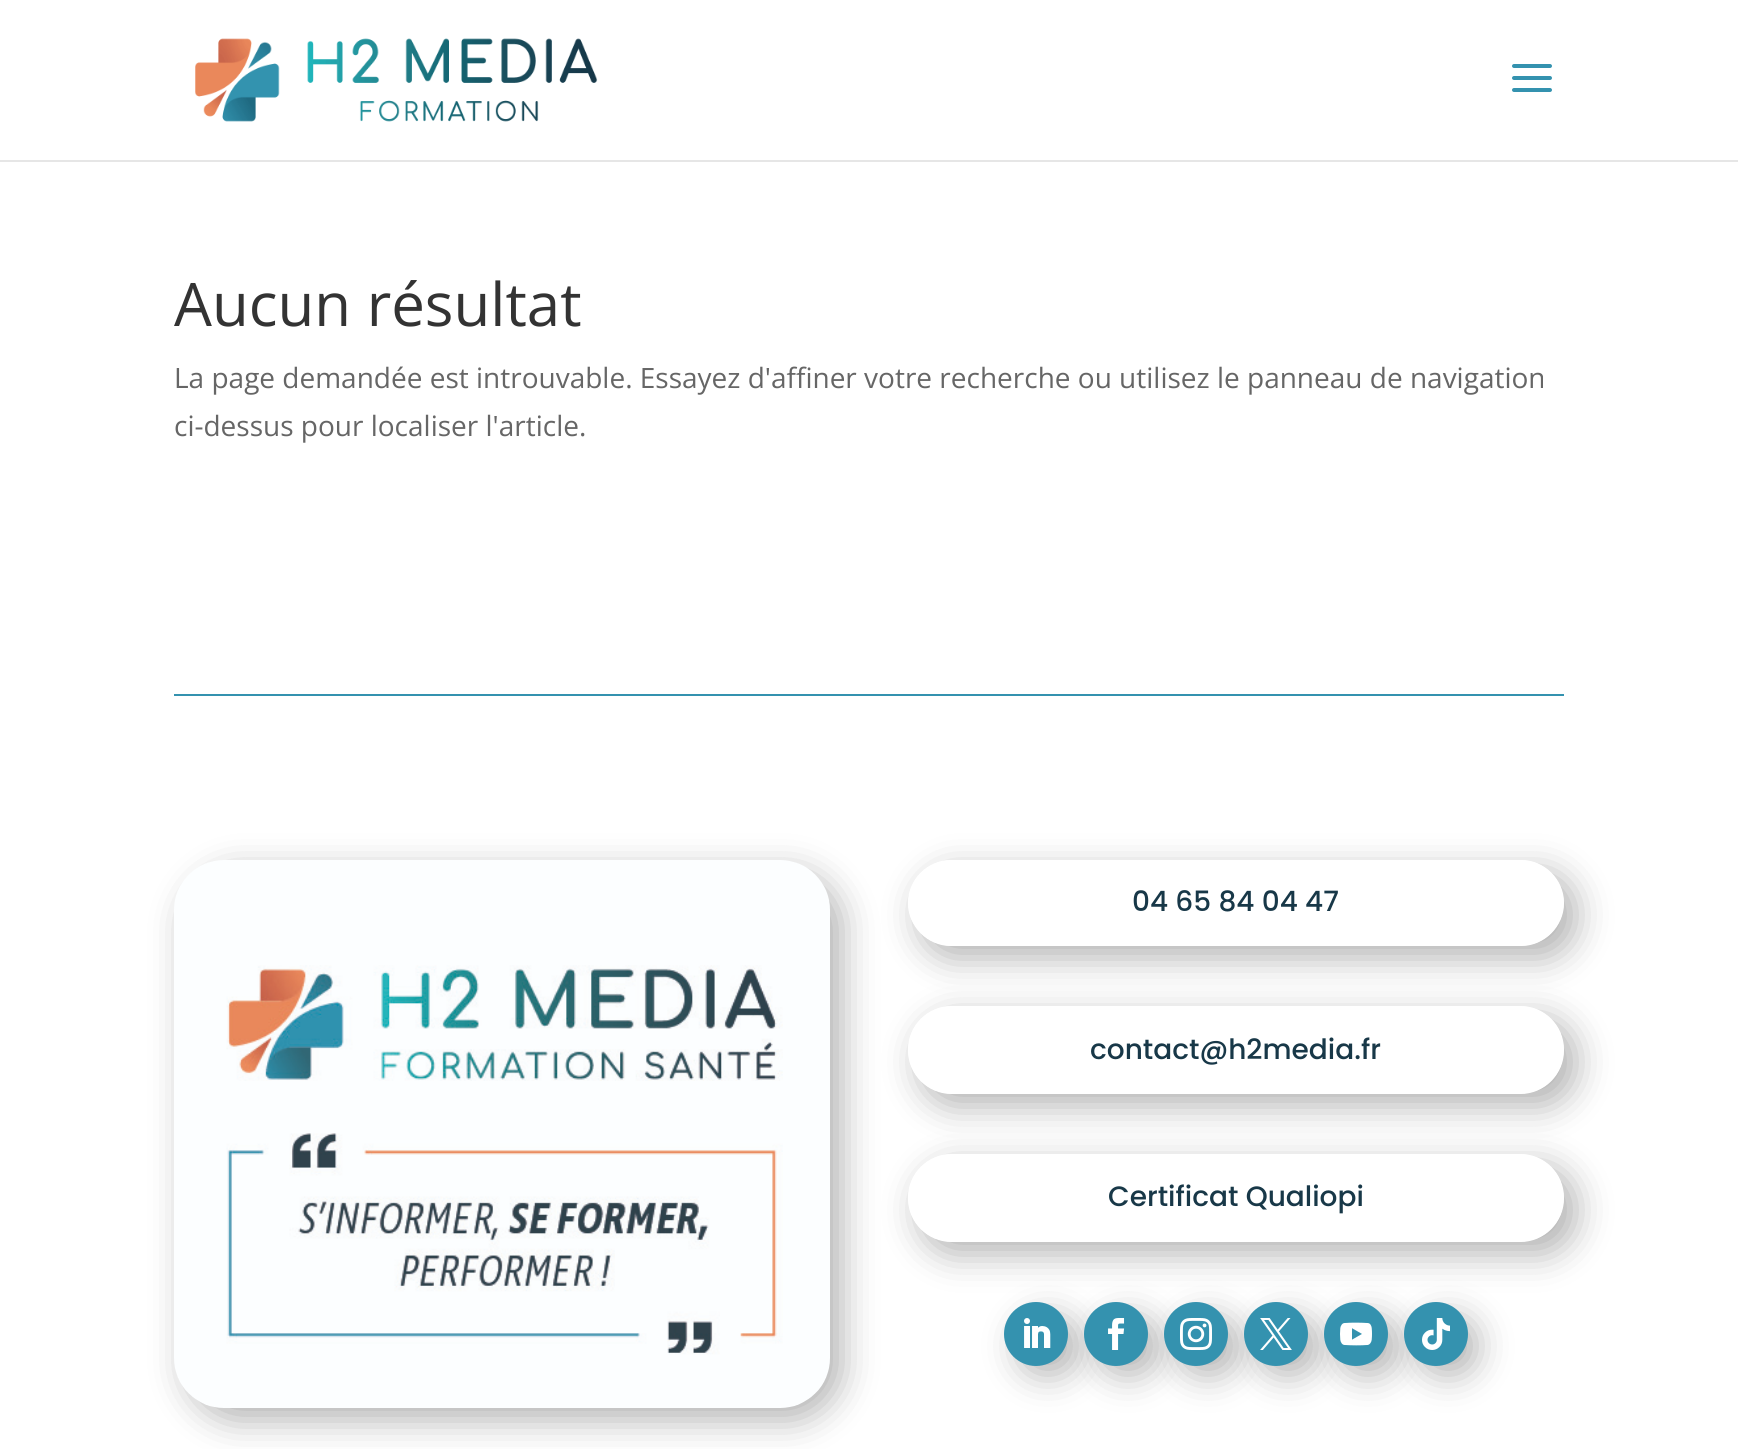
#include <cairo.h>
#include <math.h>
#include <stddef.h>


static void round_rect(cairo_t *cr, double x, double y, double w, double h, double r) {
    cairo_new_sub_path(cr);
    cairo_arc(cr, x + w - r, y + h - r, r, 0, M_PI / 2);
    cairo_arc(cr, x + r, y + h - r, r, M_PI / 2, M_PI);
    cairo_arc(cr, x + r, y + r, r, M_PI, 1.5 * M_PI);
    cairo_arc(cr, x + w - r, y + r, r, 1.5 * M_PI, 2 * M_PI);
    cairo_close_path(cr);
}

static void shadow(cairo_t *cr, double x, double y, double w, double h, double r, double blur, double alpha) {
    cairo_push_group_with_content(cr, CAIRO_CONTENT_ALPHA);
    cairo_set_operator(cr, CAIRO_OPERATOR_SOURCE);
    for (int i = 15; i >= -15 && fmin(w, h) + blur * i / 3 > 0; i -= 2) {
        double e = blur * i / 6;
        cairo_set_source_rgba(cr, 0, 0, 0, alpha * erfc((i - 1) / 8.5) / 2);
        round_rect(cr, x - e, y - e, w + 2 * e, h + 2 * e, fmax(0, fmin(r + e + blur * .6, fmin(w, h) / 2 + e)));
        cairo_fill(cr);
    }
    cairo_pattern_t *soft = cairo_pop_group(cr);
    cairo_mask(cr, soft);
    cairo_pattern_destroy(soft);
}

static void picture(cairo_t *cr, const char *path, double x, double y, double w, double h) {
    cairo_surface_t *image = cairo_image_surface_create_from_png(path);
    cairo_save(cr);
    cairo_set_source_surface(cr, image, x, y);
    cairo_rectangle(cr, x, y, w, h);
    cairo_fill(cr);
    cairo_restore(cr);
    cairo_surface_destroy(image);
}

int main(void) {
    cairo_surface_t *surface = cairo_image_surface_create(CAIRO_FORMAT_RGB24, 1738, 1449);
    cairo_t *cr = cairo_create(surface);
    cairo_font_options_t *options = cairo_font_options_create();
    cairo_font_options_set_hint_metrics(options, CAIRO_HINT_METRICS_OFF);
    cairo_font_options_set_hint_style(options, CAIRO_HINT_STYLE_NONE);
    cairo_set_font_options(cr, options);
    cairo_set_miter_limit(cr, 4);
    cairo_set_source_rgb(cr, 1, 1, 1);
    cairo_paint(cr);
    cairo_set_source_rgb(cr, 0.902, 0.902, 0.902);
    cairo_rectangle(cr, 0, 160, 1738, 2);
    cairo_fill(cr);
    picture(cr, "img1.png", 195, 38, 403, 84);
    picture(cr, "img2.png", 1512, 64, 40, 28);
    cairo_select_font_face(cr, "Open Sans", CAIRO_FONT_SLANT_NORMAL, CAIRO_FONT_WEIGHT_NORMAL);
    cairo_set_font_size(cr, 60);
    cairo_set_source_rgb(cr, 0.2, 0.2, 0.2);
    cairo_move_to(cr, 174, 326);
    cairo_show_text(cr, "Aucun résultat");
    cairo_set_font_size(cr, 28);
    cairo_set_source_rgb(cr, 0.4, 0.4, 0.4);
    cairo_move_to(cr, 174, 388);
    cairo_show_text(cr, "La page demandée est introuvable. Essayez d'affiner votre recherche ou utilisez le panneau de navigation");
    cairo_move_to(cr, 174, 436);
    cairo_show_text(cr, "ci-dessus pour localiser l'article.");
    cairo_set_source_rgb(cr, 0.204, 0.573, 0.686);
    cairo_rectangle(cr, 174, 694, 1390, 2);
    cairo_fill(cr);
    cairo_set_source_rgb(cr, 0, 0, 0);
    shadow(cr, 186, 872, 656, 548, 50, 18, 0.3);
    picture(cr, "img3.png", 174, 860, 656, 548);
    cairo_save(cr);
    cairo_set_fill_rule(cr, CAIRO_FILL_RULE_EVEN_ODD);
    cairo_new_path(cr);
    cairo_move_to(cr, 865, 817);
    cairo_line_to(cr, 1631, 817);
    cairo_line_to(cr, 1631, 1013);
    cairo_line_to(cr, 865, 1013);
    cairo_close_path(cr);
    cairo_move_to(cr, 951, 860);
    cairo_line_to(cr, 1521, 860);
    cairo_curve_to(cr, 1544.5, 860, 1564, 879.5, 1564, 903);
    cairo_curve_to(cr, 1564, 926.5, 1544.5, 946, 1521, 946);
    cairo_line_to(cr, 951, 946);
    cairo_curve_to(cr, 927.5, 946, 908, 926.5, 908, 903);
    cairo_curve_to(cr, 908, 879.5, 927.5, 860, 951, 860);
    cairo_close_path(cr);
    cairo_clip(cr);
    shadow(cr, 920, 872, 656, 86, 43, 18, 0.3);
    cairo_restore(cr);
    cairo_select_font_face(cr, "Poppins Medium", CAIRO_FONT_SLANT_NORMAL, CAIRO_FONT_WEIGHT_NORMAL);
    cairo_set_source_rgb(cr, 0.094, 0.22, 0.282);
    cairo_move_to(cr, 1132, 911);
    cairo_show_text(cr, "04 65 84 04 47");
    cairo_save(cr);
    cairo_set_fill_rule(cr, CAIRO_FILL_RULE_EVEN_ODD);
    cairo_new_path(cr);
    cairo_move_to(cr, 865, 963);
    cairo_line_to(cr, 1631, 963);
    cairo_line_to(cr, 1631, 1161);
    cairo_line_to(cr, 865, 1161);
    cairo_close_path(cr);
    cairo_move_to(cr, 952, 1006);
    cairo_line_to(cr, 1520, 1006);
    cairo_curve_to(cr, 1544.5, 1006, 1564, 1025.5, 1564, 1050);
    cairo_curve_to(cr, 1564, 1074.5, 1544.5, 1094, 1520, 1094);
    cairo_line_to(cr, 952, 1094);
    cairo_curve_to(cr, 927.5, 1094, 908, 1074.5, 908, 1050);
    cairo_curve_to(cr, 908, 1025.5, 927.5, 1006, 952, 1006);
    cairo_close_path(cr);
    cairo_clip(cr);
    cairo_set_source_rgb(cr, 0, 0, 0);
    shadow(cr, 920, 1018, 656, 88, 44, 18, 0.3);
    cairo_restore(cr);
    cairo_move_to(cr, 1090, 1059);
    cairo_show_text(cr, "contact@h2media.fr");
    cairo_save(cr);
    cairo_set_fill_rule(cr, CAIRO_FILL_RULE_EVEN_ODD);
    cairo_new_path(cr);
    cairo_move_to(cr, 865, 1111);
    cairo_line_to(cr, 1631, 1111);
    cairo_line_to(cr, 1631, 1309);
    cairo_line_to(cr, 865, 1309);
    cairo_close_path(cr);
    cairo_move_to(cr, 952, 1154);
    cairo_line_to(cr, 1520, 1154);
    cairo_curve_to(cr, 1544.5, 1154, 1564, 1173.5, 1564, 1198);
    cairo_curve_to(cr, 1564, 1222.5, 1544.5, 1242, 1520, 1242);
    cairo_line_to(cr, 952, 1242);
    cairo_curve_to(cr, 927.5, 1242, 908, 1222.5, 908, 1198);
    cairo_curve_to(cr, 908, 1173.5, 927.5, 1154, 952, 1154);
    cairo_close_path(cr);
    cairo_clip(cr);
    cairo_set_source_rgb(cr, 0, 0, 0);
    shadow(cr, 920, 1166, 656, 88, 44, 18, 0.3);
    cairo_restore(cr);
    cairo_move_to(cr, 1108, 1206);
    cairo_show_text(cr, "Certificat Qualiopi");
    cairo_set_source_rgb(cr, 0, 0, 0);
    shadow(cr, 1020, 1318, 56, 56, 28, 18, 0.3);
    cairo_set_source_rgb(cr, 0.204, 0.573, 0.686);
    cairo_arc(cr, 1036, 1334, 32, 0, 2 * M_PI);
    cairo_fill(cr);
    cairo_set_source_rgb(cr, 0, 0, 0);
    shadow(cr, 1100, 1318, 56, 56, 28, 18, 0.3);
    picture(cr, "img4.png", 1024, 1318, 27, 30);
    cairo_set_source_rgb(cr, 0.204, 0.573, 0.686);
    cairo_arc(cr, 1116, 1334, 32, 0, 2 * M_PI);
    cairo_fill(cr);
    picture(cr, "img5.png", 1108, 1318, 17, 32);
    cairo_set_source_rgb(cr, 0, 0, 0);
    shadow(cr, 1180, 1318, 56, 56, 28, 18, 0.3);
    cairo_set_source_rgb(cr, 0.204, 0.573, 0.686);
    cairo_arc(cr, 1196, 1334, 32, 0, 2 * M_PI);
    cairo_fill(cr);
    cairo_set_source_rgb(cr, 0, 0, 0);
    shadow(cr, 1260, 1318, 56, 56, 28, 18, 0.3);
    picture(cr, "img6.png", 1180, 1318, 32, 32);
    cairo_set_source_rgb(cr, 0.204, 0.573, 0.686);
    cairo_arc(cr, 1276, 1334, 32, 0, 2 * M_PI);
    cairo_fill(cr);
    cairo_set_source_rgb(cr, 0, 0, 0);
    shadow(cr, 1340, 1318, 56, 56, 28, 18, 0.3);
    picture(cr, "img7.png", 1260, 1318, 32, 32);
    cairo_set_source_rgb(cr, 0.204, 0.573, 0.686);
    cairo_arc(cr, 1356, 1334, 32, 0, 2 * M_PI);
    cairo_fill(cr);
    cairo_set_source_rgb(cr, 0, 0, 0);
    shadow(cr, 1420, 1318, 56, 56, 28, 18, 0.3);
    picture(cr, "img8.png", 1340, 1322, 32, 24);
    cairo_set_source_rgb(cr, 0.204, 0.573, 0.686);
    cairo_arc(cr, 1436, 1334, 32, 0, 2 * M_PI);
    cairo_fill(cr);
    picture(cr, "img9.png", 1422, 1318, 28, 32);
    cairo_surface_write_to_png(surface, "page.png");
    cairo_font_options_destroy(options);
    cairo_destroy(cr);
    cairo_surface_destroy(surface);
    return 0;
}
